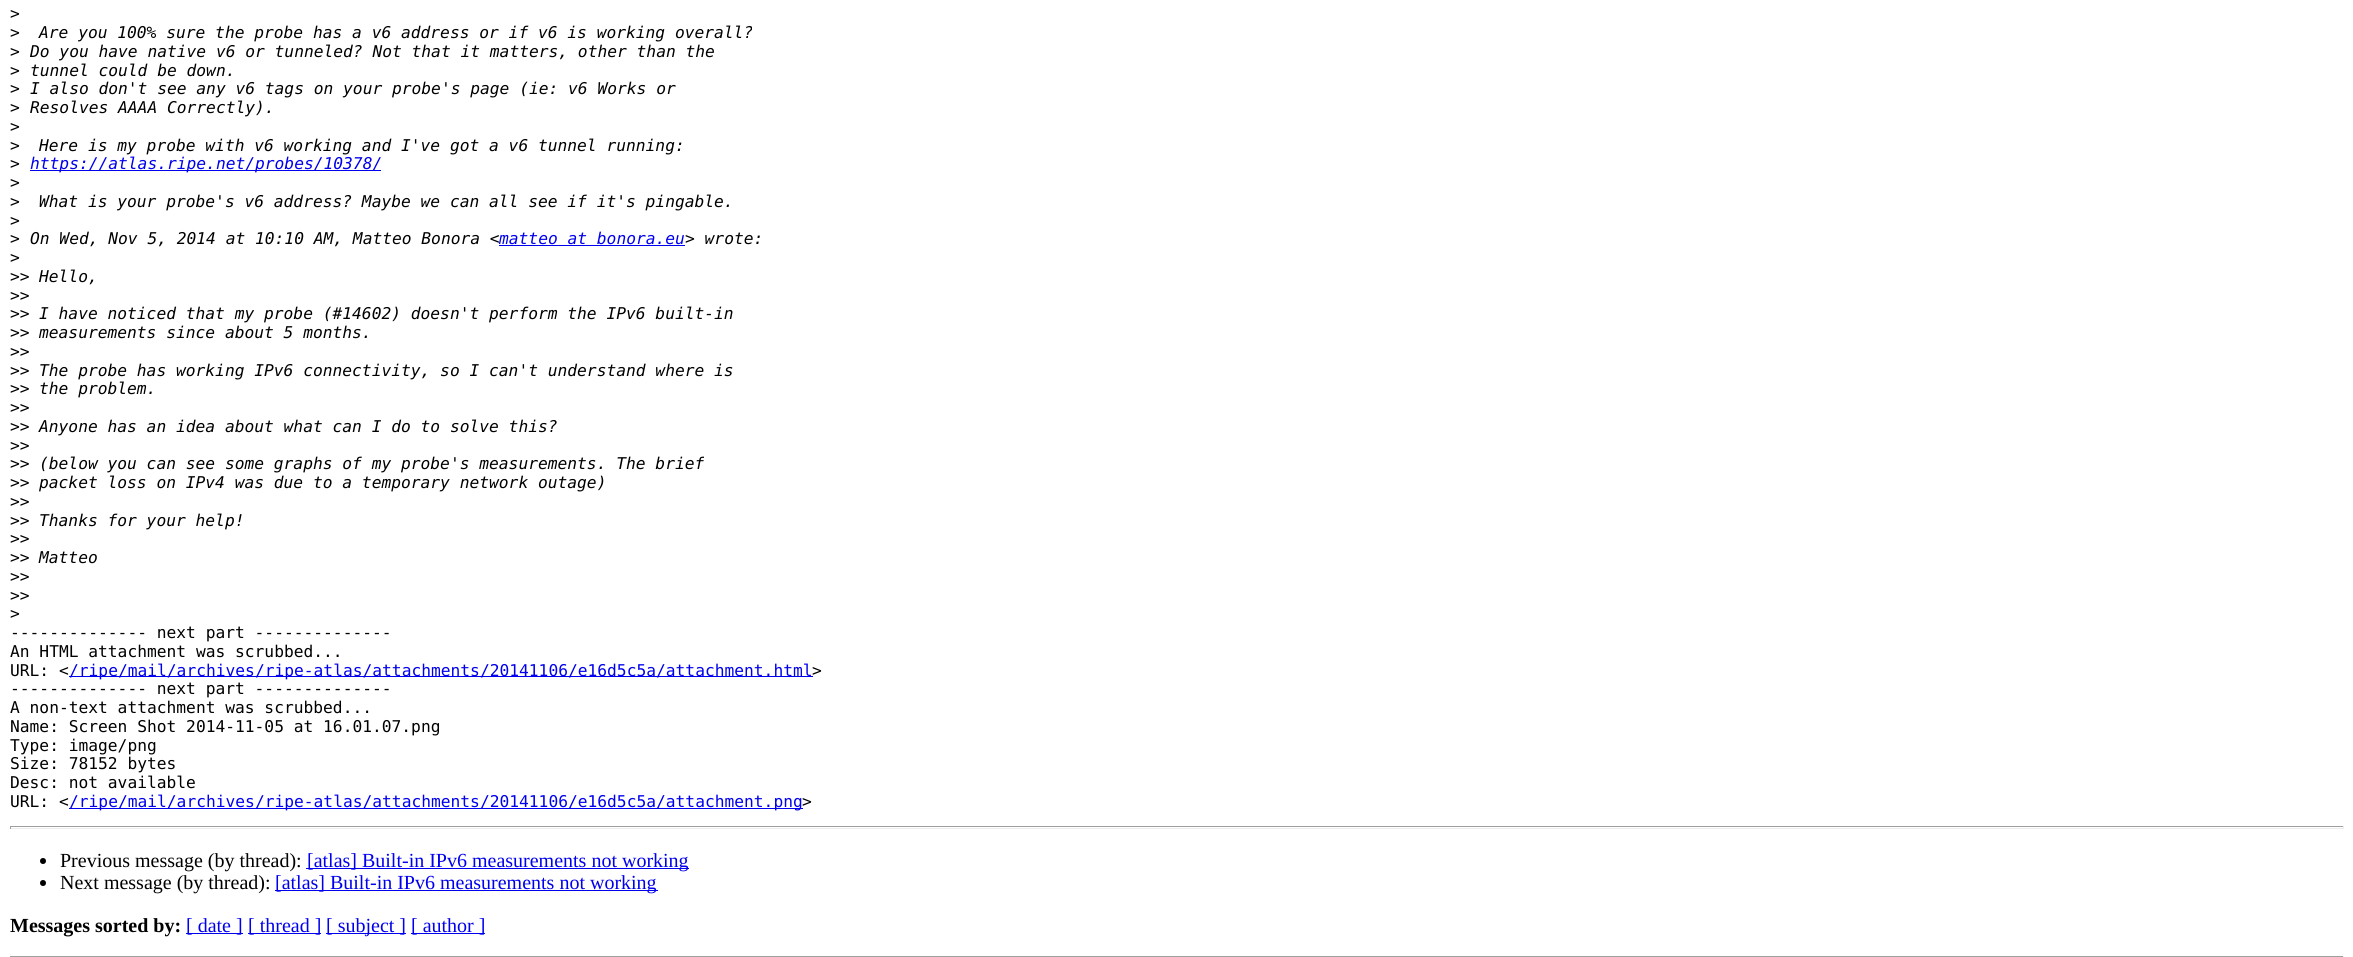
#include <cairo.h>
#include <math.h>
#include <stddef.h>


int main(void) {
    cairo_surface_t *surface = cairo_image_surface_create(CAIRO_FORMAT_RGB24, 2353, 957);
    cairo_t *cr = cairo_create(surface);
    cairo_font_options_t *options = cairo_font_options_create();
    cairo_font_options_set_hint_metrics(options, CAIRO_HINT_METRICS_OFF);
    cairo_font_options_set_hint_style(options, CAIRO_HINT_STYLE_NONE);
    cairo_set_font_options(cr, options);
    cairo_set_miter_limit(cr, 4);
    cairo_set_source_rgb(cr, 1, 1, 1);
    cairo_paint(cr);
    cairo_select_font_face(cr, "DejaVu Sans Mono", CAIRO_FONT_SLANT_NORMAL, CAIRO_FONT_WEIGHT_NORMAL);
    cairo_set_font_size(cr, 16.25);
    cairo_set_source_rgb(cr, 0, 0, 0);
    cairo_move_to(cr, 10, 19);
    cairo_show_text(cr, ">");
    cairo_move_to(cr, 10, 38);
    cairo_show_text(cr, ">");
    cairo_select_font_face(cr, "DejaVu Sans Mono", CAIRO_FONT_SLANT_ITALIC, CAIRO_FONT_WEIGHT_NORMAL);
    cairo_move_to(cr, 39, 38);
    cairo_show_text(cr, "Are you 100% sure the probe has a v6 address or if v6 is working overall?");
    cairo_select_font_face(cr, "DejaVu Sans Mono", CAIRO_FONT_SLANT_NORMAL, CAIRO_FONT_WEIGHT_NORMAL);
    cairo_move_to(cr, 10, 57);
    cairo_show_text(cr, ">");
    cairo_select_font_face(cr, "DejaVu Sans Mono", CAIRO_FONT_SLANT_ITALIC, CAIRO_FONT_WEIGHT_NORMAL);
    cairo_move_to(cr, 30, 57);
    cairo_show_text(cr, "Do you have native v6 or tunneled? Not that it matters, other than the");
    cairo_select_font_face(cr, "DejaVu Sans Mono", CAIRO_FONT_SLANT_NORMAL, CAIRO_FONT_WEIGHT_NORMAL);
    cairo_move_to(cr, 10, 76);
    cairo_show_text(cr, ">");
    cairo_select_font_face(cr, "DejaVu Sans Mono", CAIRO_FONT_SLANT_ITALIC, CAIRO_FONT_WEIGHT_NORMAL);
    cairo_move_to(cr, 30, 76);
    cairo_show_text(cr, "tunnel could be down.");
    cairo_select_font_face(cr, "DejaVu Sans Mono", CAIRO_FONT_SLANT_NORMAL, CAIRO_FONT_WEIGHT_NORMAL);
    cairo_move_to(cr, 10, 94);
    cairo_show_text(cr, ">");
    cairo_select_font_face(cr, "DejaVu Sans Mono", CAIRO_FONT_SLANT_ITALIC, CAIRO_FONT_WEIGHT_NORMAL);
    cairo_move_to(cr, 30, 94);
    cairo_show_text(cr, "I also don't see any v6 tags on your probe's page (ie: v6 Works or");
    cairo_select_font_face(cr, "DejaVu Sans Mono", CAIRO_FONT_SLANT_NORMAL, CAIRO_FONT_WEIGHT_NORMAL);
    cairo_move_to(cr, 10, 113);
    cairo_show_text(cr, ">");
    cairo_select_font_face(cr, "DejaVu Sans Mono", CAIRO_FONT_SLANT_ITALIC, CAIRO_FONT_WEIGHT_NORMAL);
    cairo_move_to(cr, 30, 113);
    cairo_show_text(cr, "Resolves AAAA Correctly).");
    cairo_select_font_face(cr, "DejaVu Sans Mono", CAIRO_FONT_SLANT_NORMAL, CAIRO_FONT_WEIGHT_NORMAL);
    cairo_move_to(cr, 10, 132);
    cairo_show_text(cr, ">");
    cairo_move_to(cr, 10, 151);
    cairo_show_text(cr, ">");
    cairo_select_font_face(cr, "DejaVu Sans Mono", CAIRO_FONT_SLANT_ITALIC, CAIRO_FONT_WEIGHT_NORMAL);
    cairo_move_to(cr, 39, 151);
    cairo_show_text(cr, "Here is my probe with v6 working and I've got a v6 tunnel running:");
    cairo_select_font_face(cr, "DejaVu Sans Mono", CAIRO_FONT_SLANT_NORMAL, CAIRO_FONT_WEIGHT_NORMAL);
    cairo_move_to(cr, 10, 169);
    cairo_show_text(cr, ">");
    cairo_set_source_rgb(cr, 0, 0, 0.933);
    cairo_rectangle(cr, 30, 170, 351, 1);
    cairo_fill(cr);
    cairo_select_font_face(cr, "DejaVu Sans Mono", CAIRO_FONT_SLANT_ITALIC, CAIRO_FONT_WEIGHT_NORMAL);
    cairo_move_to(cr, 30, 169);
    cairo_show_text(cr, "https://atlas.ripe.net/probes/10378/");
    cairo_select_font_face(cr, "DejaVu Sans Mono", CAIRO_FONT_SLANT_NORMAL, CAIRO_FONT_WEIGHT_NORMAL);
    cairo_set_source_rgb(cr, 0, 0, 0);
    cairo_move_to(cr, 10, 188);
    cairo_show_text(cr, ">");
    cairo_move_to(cr, 10, 207);
    cairo_show_text(cr, ">");
    cairo_select_font_face(cr, "DejaVu Sans Mono", CAIRO_FONT_SLANT_ITALIC, CAIRO_FONT_WEIGHT_NORMAL);
    cairo_move_to(cr, 39, 207);
    cairo_show_text(cr, "What is your probe's v6 address? Maybe we can all see if it's pingable.");
    cairo_select_font_face(cr, "DejaVu Sans Mono", CAIRO_FONT_SLANT_NORMAL, CAIRO_FONT_WEIGHT_NORMAL);
    cairo_move_to(cr, 10, 226);
    cairo_show_text(cr, ">");
    cairo_move_to(cr, 10, 244);
    cairo_show_text(cr, ">");
    cairo_select_font_face(cr, "DejaVu Sans Mono", CAIRO_FONT_SLANT_ITALIC, CAIRO_FONT_WEIGHT_NORMAL);
    cairo_move_to(cr, 30, 244);
    cairo_show_text(cr, "On Wed, Nov 5, 2014 at 10:10 AM, Matteo Bonora <");
    cairo_set_source_rgb(cr, 0, 0, 0.933);
    cairo_rectangle(cr, 499, 245, 186, 1);
    cairo_fill(cr);
    cairo_move_to(cr, 499, 244);
    cairo_show_text(cr, "matteo at bonora.eu");
    cairo_set_source_rgb(cr, 0, 0, 0);
    cairo_move_to(cr, 685, 244);
    cairo_show_text(cr, "> wrote:");
    cairo_select_font_face(cr, "DejaVu Sans Mono", CAIRO_FONT_SLANT_NORMAL, CAIRO_FONT_WEIGHT_NORMAL);
    cairo_move_to(cr, 10, 263);
    cairo_show_text(cr, ">");
    cairo_move_to(cr, 10, 282);
    cairo_show_text(cr, ">>");
    cairo_select_font_face(cr, "DejaVu Sans Mono", CAIRO_FONT_SLANT_ITALIC, CAIRO_FONT_WEIGHT_NORMAL);
    cairo_move_to(cr, 39, 282);
    cairo_show_text(cr, "Hello,");
    cairo_select_font_face(cr, "DejaVu Sans Mono", CAIRO_FONT_SLANT_NORMAL, CAIRO_FONT_WEIGHT_NORMAL);
    cairo_move_to(cr, 10, 301);
    cairo_show_text(cr, ">>");
    cairo_move_to(cr, 10, 319);
    cairo_show_text(cr, ">>");
    cairo_select_font_face(cr, "DejaVu Sans Mono", CAIRO_FONT_SLANT_ITALIC, CAIRO_FONT_WEIGHT_NORMAL);
    cairo_move_to(cr, 39, 319);
    cairo_show_text(cr, "I have noticed that my probe (#14602) doesn't perform the IPv6 built-in");
    cairo_select_font_face(cr, "DejaVu Sans Mono", CAIRO_FONT_SLANT_NORMAL, CAIRO_FONT_WEIGHT_NORMAL);
    cairo_move_to(cr, 10, 338);
    cairo_show_text(cr, ">>");
    cairo_select_font_face(cr, "DejaVu Sans Mono", CAIRO_FONT_SLANT_ITALIC, CAIRO_FONT_WEIGHT_NORMAL);
    cairo_move_to(cr, 39, 338);
    cairo_show_text(cr, "measurements since about 5 months.");
    cairo_select_font_face(cr, "DejaVu Sans Mono", CAIRO_FONT_SLANT_NORMAL, CAIRO_FONT_WEIGHT_NORMAL);
    cairo_move_to(cr, 10, 357);
    cairo_show_text(cr, ">>");
    cairo_move_to(cr, 10, 376);
    cairo_show_text(cr, ">>");
    cairo_select_font_face(cr, "DejaVu Sans Mono", CAIRO_FONT_SLANT_ITALIC, CAIRO_FONT_WEIGHT_NORMAL);
    cairo_move_to(cr, 39, 376);
    cairo_show_text(cr, "The probe has working IPv6 connectivity, so I can't understand where is");
    cairo_select_font_face(cr, "DejaVu Sans Mono", CAIRO_FONT_SLANT_NORMAL, CAIRO_FONT_WEIGHT_NORMAL);
    cairo_move_to(cr, 10, 394);
    cairo_show_text(cr, ">>");
    cairo_select_font_face(cr, "DejaVu Sans Mono", CAIRO_FONT_SLANT_ITALIC, CAIRO_FONT_WEIGHT_NORMAL);
    cairo_move_to(cr, 39, 394);
    cairo_show_text(cr, "the problem.");
    cairo_select_font_face(cr, "DejaVu Sans Mono", CAIRO_FONT_SLANT_NORMAL, CAIRO_FONT_WEIGHT_NORMAL);
    cairo_move_to(cr, 10, 413);
    cairo_show_text(cr, ">>");
    cairo_move_to(cr, 10, 432);
    cairo_show_text(cr, ">>");
    cairo_select_font_face(cr, "DejaVu Sans Mono", CAIRO_FONT_SLANT_ITALIC, CAIRO_FONT_WEIGHT_NORMAL);
    cairo_move_to(cr, 39, 432);
    cairo_show_text(cr, "Anyone has an idea about what can I do to solve this?");
    cairo_select_font_face(cr, "DejaVu Sans Mono", CAIRO_FONT_SLANT_NORMAL, CAIRO_FONT_WEIGHT_NORMAL);
    cairo_move_to(cr, 10, 451);
    cairo_show_text(cr, ">>");
    cairo_move_to(cr, 10, 469);
    cairo_show_text(cr, ">>");
    cairo_select_font_face(cr, "DejaVu Sans Mono", CAIRO_FONT_SLANT_ITALIC, CAIRO_FONT_WEIGHT_NORMAL);
    cairo_move_to(cr, 39, 469);
    cairo_show_text(cr, "(below you can see some graphs of my probe's measurements. The brief");
    cairo_select_font_face(cr, "DejaVu Sans Mono", CAIRO_FONT_SLANT_NORMAL, CAIRO_FONT_WEIGHT_NORMAL);
    cairo_move_to(cr, 10, 488);
    cairo_show_text(cr, ">>");
    cairo_select_font_face(cr, "DejaVu Sans Mono", CAIRO_FONT_SLANT_ITALIC, CAIRO_FONT_WEIGHT_NORMAL);
    cairo_move_to(cr, 39, 488);
    cairo_show_text(cr, "packet loss on IPv4 was due to a temporary network outage)");
    cairo_select_font_face(cr, "DejaVu Sans Mono", CAIRO_FONT_SLANT_NORMAL, CAIRO_FONT_WEIGHT_NORMAL);
    cairo_move_to(cr, 10, 507);
    cairo_show_text(cr, ">>");
    cairo_move_to(cr, 10, 526);
    cairo_show_text(cr, ">>");
    cairo_select_font_face(cr, "DejaVu Sans Mono", CAIRO_FONT_SLANT_ITALIC, CAIRO_FONT_WEIGHT_NORMAL);
    cairo_move_to(cr, 39, 526);
    cairo_show_text(cr, "Thanks for your help!");
    cairo_select_font_face(cr, "DejaVu Sans Mono", CAIRO_FONT_SLANT_NORMAL, CAIRO_FONT_WEIGHT_NORMAL);
    cairo_move_to(cr, 10, 544);
    cairo_show_text(cr, ">>");
    cairo_move_to(cr, 10, 563);
    cairo_show_text(cr, ">>");
    cairo_select_font_face(cr, "DejaVu Sans Mono", CAIRO_FONT_SLANT_ITALIC, CAIRO_FONT_WEIGHT_NORMAL);
    cairo_move_to(cr, 39, 563);
    cairo_show_text(cr, "Matteo");
    cairo_select_font_face(cr, "DejaVu Sans Mono", CAIRO_FONT_SLANT_NORMAL, CAIRO_FONT_WEIGHT_NORMAL);
    cairo_move_to(cr, 10, 582);
    cairo_show_text(cr, ">>");
    cairo_move_to(cr, 10, 601);
    cairo_show_text(cr, ">>");
    cairo_move_to(cr, 10, 619);
    cairo_show_text(cr, ">");
    cairo_move_to(cr, 10, 638);
    cairo_show_text(cr, "-------------- next part --------------");
    cairo_move_to(cr, 10, 657);
    cairo_show_text(cr, "An HTML attachment was scrubbed...");
    cairo_move_to(cr, 10, 676);
    cairo_show_text(cr, "URL: <");
    cairo_set_source_rgb(cr, 0, 0, 0.933);
    cairo_rectangle(cr, 69, 676, 744, 1);
    cairo_fill(cr);
    cairo_move_to(cr, 69, 676);
    cairo_show_text(cr, "/ripe/mail/archives/ripe-atlas/attachments/20141106/e16d5c5a/attachment.html");
    cairo_set_source_rgb(cr, 0, 0, 0);
    cairo_move_to(cr, 812, 676);
    cairo_show_text(cr, ">");
    cairo_move_to(cr, 10, 694);
    cairo_show_text(cr, "-------------- next part --------------");
    cairo_move_to(cr, 10, 713);
    cairo_show_text(cr, "A non-text attachment was scrubbed...");
    cairo_move_to(cr, 10, 732);
    cairo_show_text(cr, "Name: Screen Shot 2014-11-05 at 16.01.07.png");
    cairo_move_to(cr, 10, 751);
    cairo_show_text(cr, "Type: image/png");
    cairo_move_to(cr, 10, 769);
    cairo_show_text(cr, "Size: 78152 bytes");
    cairo_move_to(cr, 10, 788);
    cairo_show_text(cr, "Desc: not available");
    cairo_move_to(cr, 10, 807);
    cairo_show_text(cr, "URL: <");
    cairo_set_source_rgb(cr, 0, 0, 0.933);
    cairo_rectangle(cr, 69, 808, 734, 1);
    cairo_fill(cr);
    cairo_move_to(cr, 69, 807);
    cairo_show_text(cr, "/ripe/mail/archives/ripe-atlas/attachments/20141106/e16d5c5a/attachment.png");
    cairo_set_source_rgb(cr, 0, 0, 0);
    cairo_move_to(cr, 802, 807);
    cairo_show_text(cr, ">");
    cairo_set_source_rgb(cr, 0.624, 0.624, 0.624);
    cairo_rectangle(cr, 10, 826, 2334, 1);
    cairo_fill(cr);
    cairo_set_source_rgb(cr, 0.933, 0.933, 0.933);
    cairo_rectangle(cr, 2343, 826, 1, 3);
    cairo_fill(cr);
    cairo_rectangle(cr, 10, 828, 2334, 1);
    cairo_fill(cr);
    cairo_set_source_rgb(cr, 0.624, 0.624, 0.624);
    cairo_rectangle(cr, 10, 826, 1, 3);
    cairo_fill(cr);
    cairo_set_source_rgb(cr, 0, 0, 0);
    cairo_arc(cr, 43, 861, 3, 0, 2 * M_PI);
    cairo_fill(cr);
    cairo_select_font_face(cr, "Liberation Serif", CAIRO_FONT_SLANT_NORMAL, CAIRO_FONT_WEIGHT_NORMAL);
    cairo_set_font_size(cr, 20);
    cairo_move_to(cr, 60, 867);
    cairo_show_text(cr, "Previous message (by thread):");
    cairo_set_source_rgb(cr, 0, 0, 0.933);
    cairo_rectangle(cr, 306, 868, 383, 1);
    cairo_fill(cr);
    cairo_move_to(cr, 307, 867);
    cairo_show_text(cr, "[atlas] Built-in IPv6 measurements not working");
    cairo_set_source_rgb(cr, 0, 0, 0);
    cairo_new_path(cr);
    cairo_arc(cr, 43, 883, 3, 0, 2 * M_PI);
    cairo_fill(cr);
    cairo_move_to(cr, 60, 889);
    cairo_show_text(cr, "Next message (by thread):");
    cairo_set_source_rgb(cr, 0, 0, 0.933);
    cairo_rectangle(cr, 275, 890, 383, 1);
    cairo_fill(cr);
    cairo_move_to(cr, 275, 889);
    cairo_show_text(cr, "[atlas] Built-in IPv6 measurements not working");
    cairo_select_font_face(cr, "Liberation Serif", CAIRO_FONT_SLANT_NORMAL, CAIRO_FONT_WEIGHT_BOLD);
    cairo_set_source_rgb(cr, 0, 0, 0);
    cairo_move_to(cr, 10, 932);
    cairo_show_text(cr, "Messages sorted by:");
    cairo_set_source_rgb(cr, 0, 0, 0.933);
    cairo_rectangle(cr, 186, 933, 57, 1);
    cairo_fill(cr);
    cairo_select_font_face(cr, "Liberation Serif", CAIRO_FONT_SLANT_NORMAL, CAIRO_FONT_WEIGHT_NORMAL);
    cairo_move_to(cr, 186, 932);
    cairo_show_text(cr, "[ date ]");
    cairo_rectangle(cr, 248, 933, 73, 1);
    cairo_fill(cr);
    cairo_move_to(cr, 248, 932);
    cairo_show_text(cr, "[ thread ]");
    cairo_rectangle(cr, 326, 933, 80, 1);
    cairo_fill(cr);
    cairo_move_to(cr, 326, 932);
    cairo_show_text(cr, "[ subject ]");
    cairo_rectangle(cr, 411, 933, 74, 1);
    cairo_fill(cr);
    cairo_move_to(cr, 411, 932);
    cairo_show_text(cr, "[ author ]");
    cairo_set_source_rgb(cr, 0.624, 0.624, 0.624);
    cairo_rectangle(cr, 10, 956, 2334, 1);
    cairo_fill(cr);
    cairo_set_source_rgb(cr, 0.933, 0.933, 0.933);
    cairo_rectangle(cr, 2343, 956, 1, 1);
    cairo_fill(cr);
    cairo_surface_write_to_png(surface, "page.png");
    cairo_font_options_destroy(options);
    cairo_destroy(cr);
    cairo_surface_destroy(surface);
    return 0;
}
